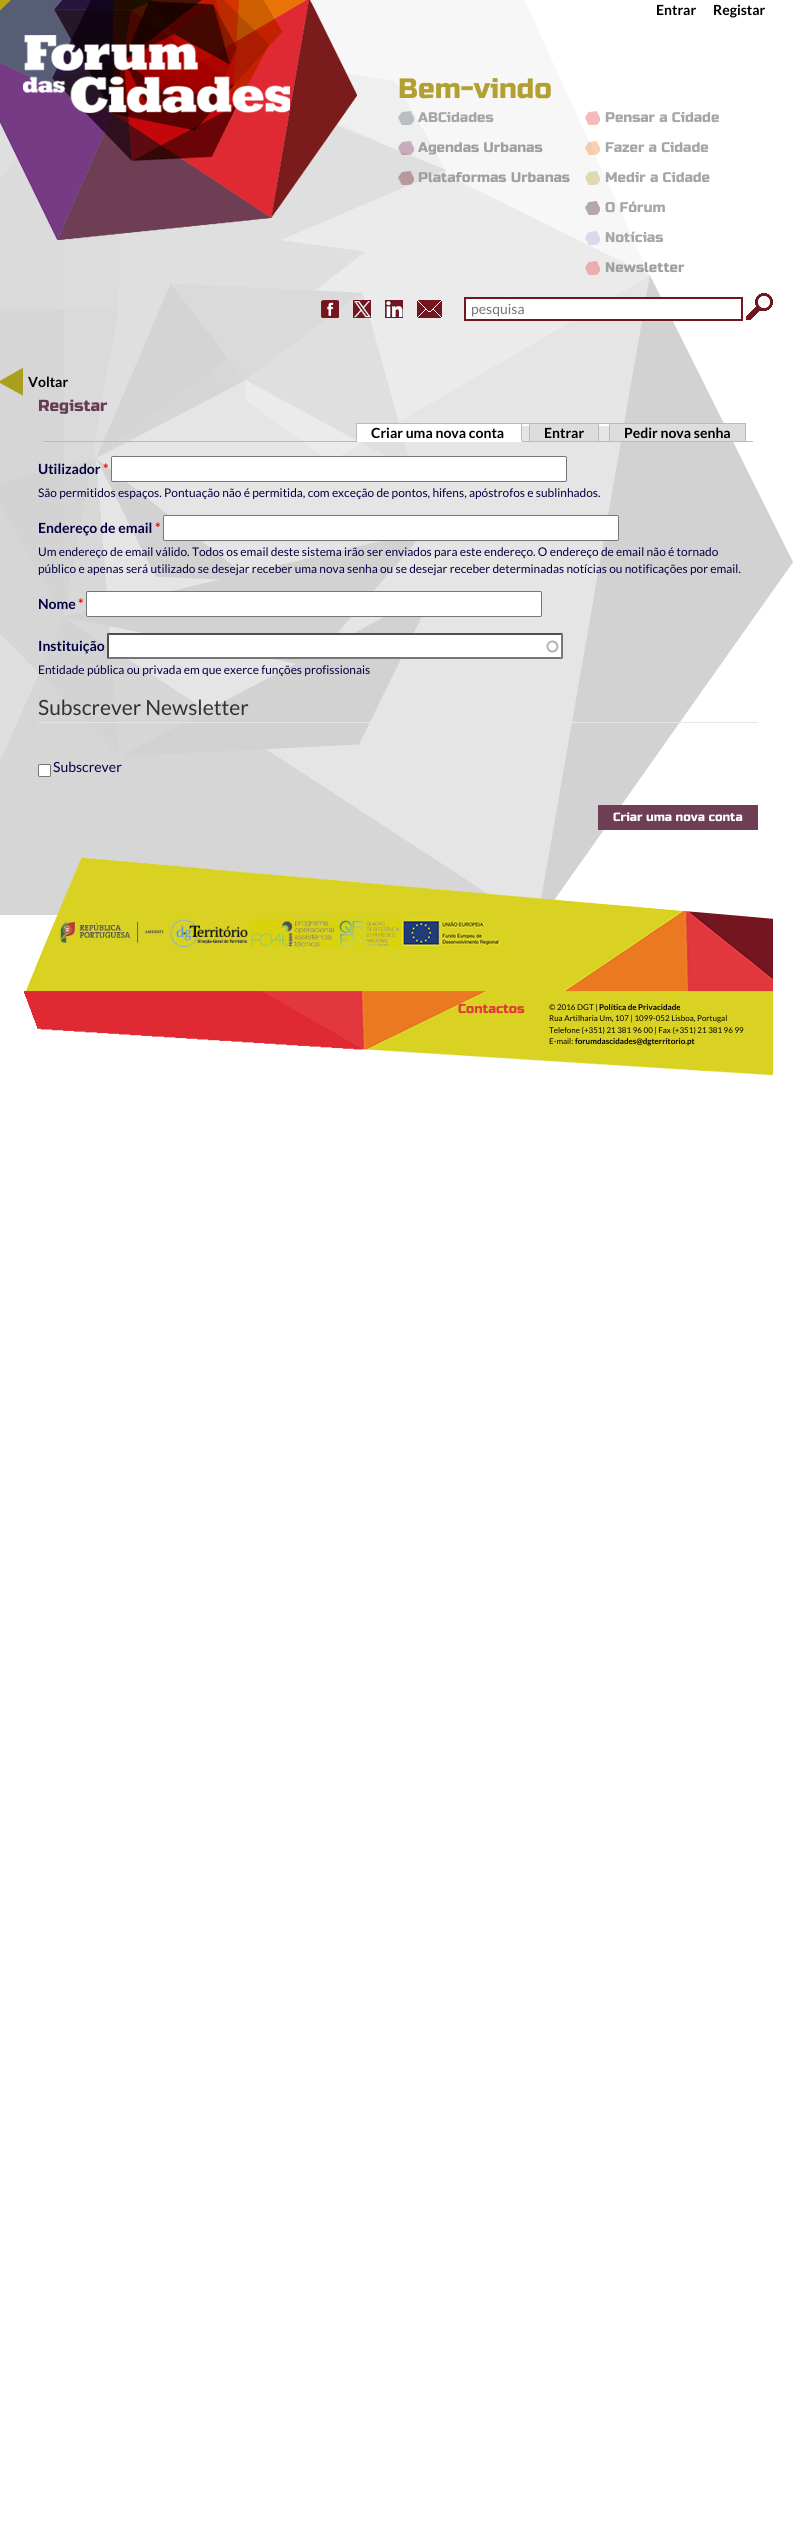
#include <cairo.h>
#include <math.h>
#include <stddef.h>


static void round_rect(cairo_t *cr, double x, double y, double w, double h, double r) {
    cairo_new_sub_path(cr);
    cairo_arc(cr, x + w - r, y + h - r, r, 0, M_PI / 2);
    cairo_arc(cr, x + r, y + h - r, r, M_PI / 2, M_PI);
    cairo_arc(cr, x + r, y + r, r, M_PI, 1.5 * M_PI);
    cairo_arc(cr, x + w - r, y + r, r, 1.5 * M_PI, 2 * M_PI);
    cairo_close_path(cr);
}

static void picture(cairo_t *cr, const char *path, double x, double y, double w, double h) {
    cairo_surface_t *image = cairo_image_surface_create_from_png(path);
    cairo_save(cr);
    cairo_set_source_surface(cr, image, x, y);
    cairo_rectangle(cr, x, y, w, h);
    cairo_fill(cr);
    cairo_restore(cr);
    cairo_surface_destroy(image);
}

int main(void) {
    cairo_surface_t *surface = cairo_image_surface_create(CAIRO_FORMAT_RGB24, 795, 2532);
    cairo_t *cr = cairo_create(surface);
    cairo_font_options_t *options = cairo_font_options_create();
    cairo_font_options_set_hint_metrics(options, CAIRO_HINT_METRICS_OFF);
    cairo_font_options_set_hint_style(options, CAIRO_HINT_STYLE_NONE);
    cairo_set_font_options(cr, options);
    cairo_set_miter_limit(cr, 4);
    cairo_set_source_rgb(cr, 1, 1, 1);
    cairo_paint(cr);
    picture(cr, "img1.png", 0, 0, 793, 915);
    picture(cr, "img2.png", 0, 0, 357, 240);
    picture(cr, "img3.png", 23, 35, 267, 78);
    cairo_select_font_face(cr, "Lato", CAIRO_FONT_SLANT_NORMAL, CAIRO_FONT_WEIGHT_BOLD);
    cairo_set_font_size(cr, 14);
    cairo_set_source_rgb(cr, 0, 0, 0);
    cairo_move_to(cr, 656, 15);
    cairo_show_text(cr, "Entrar");
    cairo_move_to(cr, 713, 15);
    cairo_show_text(cr, "Registar");
    cairo_select_font_face(cr, "Russo One", CAIRO_FONT_SLANT_NORMAL, CAIRO_FONT_WEIGHT_NORMAL);
    cairo_set_font_size(cr, 28);
    cairo_set_source_rgb(cr, 0.702, 0.627, 0.196);
    cairo_move_to(cr, 398, 98);
    cairo_show_text(cr, "Bem-vindo");
    picture(cr, "img4.png", 398, 111, 16, 14);
    cairo_set_font_size(cr, 14);
    cairo_set_source_rgb(cr, 0.651, 0.651, 0.651);
    cairo_move_to(cr, 418, 122);
    cairo_show_text(cr, "ABCidades");
    picture(cr, "img5.png", 398, 141, 16, 14);
    cairo_set_source_rgb(cr, 0.627, 0.627, 0.627);
    cairo_move_to(cr, 418, 152);
    cairo_show_text(cr, "Agendas Urbanas");
    picture(cr, "img6.png", 398, 171, 16, 14);
    cairo_move_to(cr, 418, 182);
    cairo_show_text(cr, "Plataformas Urbanas");
    picture(cr, "img7.png", 585, 111, 15, 14);
    cairo_set_source_rgb(cr, 0.651, 0.651, 0.651);
    cairo_move_to(cr, 605, 122);
    cairo_show_text(cr, "Pensar a Cidade");
    picture(cr, "img8.png", 585, 141, 15, 14);
    cairo_move_to(cr, 605, 152);
    cairo_show_text(cr, "Fazer a Cidade");
    picture(cr, "img9.png", 585, 171, 15, 14);
    cairo_move_to(cr, 605, 182);
    cairo_show_text(cr, "Medir a Cidade");
    picture(cr, "img10.png", 585, 201, 15, 14);
    cairo_move_to(cr, 605, 212);
    cairo_show_text(cr, "O Fórum");
    picture(cr, "img11.png", 585, 231, 15, 14);
    cairo_move_to(cr, 605, 242);
    cairo_show_text(cr, "Notícias");
    picture(cr, "img12.png", 585, 261, 15, 14);
    cairo_set_source_rgb(cr, 0.627, 0.627, 0.627);
    cairo_move_to(cr, 605, 272);
    cairo_show_text(cr, "Newsletter");
    picture(cr, "img13.png", 321, 300, 18, 18);
    picture(cr, "img14.png", 353, 300, 18, 18);
    picture(cr, "img15.png", 385, 300, 18, 18);
    picture(cr, "img16.png", 417, 300, 25, 18);
    cairo_set_source_rgb(cr, 1, 1, 1);
    cairo_rectangle(cr, 466, 299, 206, 20);
    cairo_fill(cr);
    cairo_rectangle(cr, 465, 298, 277, 22);
    cairo_set_source_rgb(cr, 0.455, 0.086, 0.125);
    cairo_stroke(cr);
    cairo_select_font_face(cr, "Lato", CAIRO_FONT_SLANT_NORMAL, CAIRO_FONT_WEIGHT_NORMAL);
    cairo_set_source_rgb(cr, 0.459, 0.459, 0.459);
    cairo_move_to(cr, 471, 314);
    cairo_show_text(cr, "pesquisa");
    picture(cr, "img17.png", 746, 293, 27, 27);
    picture(cr, "img18.png", 0, 367, 23, 29);
    cairo_select_font_face(cr, "Lato", CAIRO_FONT_SLANT_NORMAL, CAIRO_FONT_WEIGHT_BOLD);
    cairo_set_source_rgb(cr, 0, 0, 0);
    cairo_move_to(cr, 28, 387);
    cairo_show_text(cr, "Voltar");
    cairo_select_font_face(cr, "Russo One", CAIRO_FONT_SLANT_NORMAL, CAIRO_FONT_WEIGHT_NORMAL);
    cairo_set_font_size(cr, 16);
    cairo_set_source_rgb(cr, 0.404, 0.231, 0.329);
    cairo_move_to(cr, 38, 411);
    cairo_show_text(cr, "Registar");
    cairo_set_source_rgb(cr, 0.733, 0.733, 0.733);
    cairo_rectangle(cr, 43, 441, 710, 1);
    cairo_fill(cr);
    cairo_set_source_rgb(cr, 1, 1, 1);
    cairo_rectangle(cr, 357, 424, 147, 18);
    cairo_fill(cr);
    cairo_select_font_face(cr, "Lato", CAIRO_FONT_SLANT_NORMAL, CAIRO_FONT_WEIGHT_BOLD);
    cairo_set_font_size(cr, 14);
    cairo_set_source_rgb(cr, 0, 0, 0);
    cairo_move_to(cr, 371, 438);
    cairo_show_text(cr, "Criar uma nova conta");
    cairo_set_source_rgb(cr, 0.733, 0.733, 0.733);
    cairo_rectangle(cr, 356, 423, 148, 1);
    cairo_fill(cr);
    cairo_rectangle(cr, 356, 423, 1, 19);
    cairo_fill(cr);
    cairo_set_source_rgb(cr, 1, 1, 1);
    cairo_rectangle(cr, 522, 424, 89, 2);
    cairo_fill(cr);
    cairo_set_source_rgb(cr, 0.733, 0.733, 0.733);
    cairo_rectangle(cr, 504, 423, 242, 1);
    cairo_fill(cr);
    cairo_set_source_rgb(cr, 1, 1, 1);
    cairo_rectangle(cr, 504, 424, 17, 17);
    cairo_fill(cr);
    cairo_set_source_rgb(cr, 0.733, 0.733, 0.733);
    cairo_rectangle(cr, 521, 423, 1, 19);
    cairo_fill(cr);
    cairo_set_source_rgb(cr, 1, 1, 1);
    cairo_rectangle(cr, 504, 441, 18, 1);
    cairo_fill(cr);
    cairo_set_source_rgb(cr, 0.867, 0.867, 0.867);
    cairo_rectangle(cr, 530, 424, 68, 17);
    cairo_fill(cr);
    cairo_set_source_rgb(cr, 0, 0, 0);
    cairo_move_to(cr, 544, 438);
    cairo_show_text(cr, "Entrar");
    cairo_set_source_rgb(cr, 0.733, 0.733, 0.733);
    cairo_rectangle(cr, 598, 423, 1, 18);
    cairo_fill(cr);
    cairo_rectangle(cr, 529, 423, 1, 18);
    cairo_fill(cr);
    cairo_set_source_rgb(cr, 0.867, 0.867, 0.867);
    cairo_rectangle(cr, 610, 424, 135, 17);
    cairo_fill(cr);
    cairo_set_source_rgb(cr, 0, 0, 0);
    cairo_move_to(cr, 624, 438);
    cairo_show_text(cr, "Pedir nova senha");
    cairo_set_source_rgb(cr, 0.733, 0.733, 0.733);
    cairo_rectangle(cr, 745, 423, 1, 18);
    cairo_fill(cr);
    cairo_rectangle(cr, 609, 423, 1, 18);
    cairo_fill(cr);
    cairo_set_source_rgb(cr, 0.008, 0.004, 0.263);
    cairo_move_to(cr, 38, 474);
    cairo_show_text(cr, "Utilizador");
    cairo_set_source_rgb(cr, 1, 0, 0);
    cairo_move_to(cr, 103, 474);
    cairo_show_text(cr, "*");
    cairo_set_source_rgb(cr, 1, 1, 1);
    round_rect(cr, 111.5, 456.5, 455, 25, 1.5);
    cairo_fill_preserve(cr);
    cairo_set_source_rgb(cr, 0.463, 0.463, 0.463);
    cairo_set_line_width(cr, 1);
    cairo_stroke(cr);
    cairo_select_font_face(cr, "Lato", CAIRO_FONT_SLANT_NORMAL, CAIRO_FONT_WEIGHT_NORMAL);
    cairo_set_font_size(cr, 11.9);
    cairo_set_source_rgb(cr, 0.008, 0.004, 0.263);
    cairo_move_to(cr, 38, 497);
    cairo_show_text(cr, "São permitidos espaços. Pontuação não é permitida, com exceção de pontos, hifens, apóstrofos e sublinhados.");
    cairo_select_font_face(cr, "Lato", CAIRO_FONT_SLANT_NORMAL, CAIRO_FONT_WEIGHT_BOLD);
    cairo_set_font_size(cr, 14);
    cairo_move_to(cr, 38, 533);
    cairo_show_text(cr, "Endereço de email");
    cairo_set_source_rgb(cr, 1, 0, 0);
    cairo_move_to(cr, 155, 533);
    cairo_show_text(cr, "*");
    cairo_set_source_rgb(cr, 1, 1, 1);
    round_rect(cr, 163.5, 515.5, 455, 25, 1.5);
    cairo_fill_preserve(cr);
    cairo_set_source_rgb(cr, 0.463, 0.463, 0.463);
    cairo_stroke(cr);
    cairo_select_font_face(cr, "Lato", CAIRO_FONT_SLANT_NORMAL, CAIRO_FONT_WEIGHT_NORMAL);
    cairo_set_font_size(cr, 11.9);
    cairo_set_source_rgb(cr, 0.008, 0.004, 0.263);
    cairo_move_to(cr, 38, 556);
    cairo_show_text(cr, "Um endereço de email válido. Todos os email deste sistema irão ser enviados para este endereço. O endereço de email não é tornado");
    cairo_move_to(cr, 38, 573);
    cairo_show_text(cr, "público e apenas será utilizado se desejar receber uma nova senha ou se desejar receber determinadas notícias ou notificações por email.");
    cairo_select_font_face(cr, "Lato", CAIRO_FONT_SLANT_NORMAL, CAIRO_FONT_WEIGHT_BOLD);
    cairo_set_font_size(cr, 14);
    cairo_move_to(cr, 38, 609);
    cairo_show_text(cr, "Nome");
    cairo_set_source_rgb(cr, 1, 0, 0);
    cairo_move_to(cr, 78, 609);
    cairo_show_text(cr, "*");
    cairo_set_source_rgb(cr, 1, 1, 1);
    round_rect(cr, 86.5, 591.5, 455, 25, 1.5);
    cairo_fill_preserve(cr);
    cairo_set_source_rgb(cr, 0.463, 0.463, 0.463);
    cairo_stroke(cr);
    cairo_set_source_rgb(cr, 0.008, 0.004, 0.263);
    cairo_move_to(cr, 38, 651);
    cairo_show_text(cr, "Instituição");
    cairo_set_source_rgb(cr, 1, 1, 1);
    cairo_rectangle(cr, 107, 633, 456, 26);
    cairo_fill(cr);
    picture(cr, "img19.png", 546, 640, 13, 13);
    cairo_set_source_rgb(cr, 0.31, 0.31, 0.31);
    cairo_new_path(cr);
    cairo_move_to(cr, 107, 633);
    cairo_line_to(cr, 563, 633);
    cairo_line_to(cr, 561, 635);
    cairo_line_to(cr, 109, 635);
    cairo_close_path(cr);
    cairo_fill(cr);
    cairo_set_source_rgb(cr, 0.463, 0.463, 0.463);
    cairo_new_path(cr);
    cairo_move_to(cr, 563, 633);
    cairo_line_to(cr, 563, 659);
    cairo_line_to(cr, 561, 657);
    cairo_line_to(cr, 561, 635);
    cairo_close_path(cr);
    cairo_fill(cr);
    cairo_new_path(cr);
    cairo_move_to(cr, 563, 659);
    cairo_line_to(cr, 107, 659);
    cairo_line_to(cr, 109, 657);
    cairo_line_to(cr, 561, 657);
    cairo_close_path(cr);
    cairo_fill(cr);
    cairo_set_source_rgb(cr, 0.31, 0.31, 0.31);
    cairo_new_path(cr);
    cairo_move_to(cr, 107, 659);
    cairo_line_to(cr, 107, 633);
    cairo_line_to(cr, 109, 635);
    cairo_line_to(cr, 109, 657);
    cairo_close_path(cr);
    cairo_fill(cr);
    cairo_select_font_face(cr, "Lato", CAIRO_FONT_SLANT_NORMAL, CAIRO_FONT_WEIGHT_NORMAL);
    cairo_set_font_size(cr, 11.9);
    cairo_set_source_rgb(cr, 0.008, 0.004, 0.263);
    cairo_move_to(cr, 38, 674);
    cairo_show_text(cr, "Entidade pública ou privada em que exerce funções profissionais");
    cairo_set_source_rgb(cr, 0.898, 0.898, 0.898);
    cairo_rectangle(cr, 38, 722, 720, 1);
    cairo_fill(cr);
    cairo_set_font_size(cr, 21);
    cairo_set_source_rgb(cr, 0.2, 0.2, 0.2);
    cairo_move_to(cr, 38, 715);
    cairo_show_text(cr, "Subscrever Newsletter");
    cairo_set_source_rgb(cr, 1, 1, 1);
    round_rect(cr, 38.5, 764.5, 12, 12, 1.5);
    cairo_fill_preserve(cr);
    cairo_set_source_rgb(cr, 0.463, 0.463, 0.463);
    cairo_stroke(cr);
    cairo_set_font_size(cr, 14);
    cairo_set_source_rgb(cr, 0.008, 0.004, 0.263);
    cairo_move_to(cr, 53, 772);
    cairo_show_text(cr, "Subscrever");
    cairo_set_source_rgb(cr, 0.427, 0.243, 0.329);
    cairo_rectangle(cr, 598, 805, 160, 25);
    cairo_fill(cr);
    cairo_select_font_face(cr, "Russo One", CAIRO_FONT_SLANT_NORMAL, CAIRO_FONT_WEIGHT_NORMAL);
    cairo_set_font_size(cr, 12);
    cairo_set_source_rgb(cr, 1, 1, 1);
    cairo_move_to(cr, 613, 821);
    cairo_show_text(cr, "Criar uma nova conta");
    picture(cr, "img20.png", 24, 857, 749, 219);
    picture(cr, "img21.png", 60, 919, 104, 24);
    picture(cr, "img22.png", 169, 919, 80, 28);
    picture(cr, "img23.png", 249, 919, 88, 28);
    picture(cr, "img24.png", 337, 919, 65, 28);
    picture(cr, "img25.png", 402, 919, 98, 27);
    cairo_set_font_size(cr, 13);
    cairo_set_source_rgb(cr, 0.886, 0.216, 0.239);
    cairo_move_to(cr, 458, 1013);
    cairo_show_text(cr, "Contactos");
    cairo_select_font_face(cr, "Lato", CAIRO_FONT_SLANT_NORMAL, CAIRO_FONT_WEIGHT_NORMAL);
    cairo_set_font_size(cr, 8);
    cairo_set_source_rgb(cr, 0, 0, 0);
    cairo_move_to(cr, 549, 1010);
    cairo_show_text(cr, "© 2016 DGT |");
    cairo_select_font_face(cr, "Lato", CAIRO_FONT_SLANT_NORMAL, CAIRO_FONT_WEIGHT_BOLD);
    cairo_move_to(cr, 599, 1010);
    cairo_show_text(cr, "Política de Privacidade");
    cairo_select_font_face(cr, "Lato", CAIRO_FONT_SLANT_NORMAL, CAIRO_FONT_WEIGHT_NORMAL);
    cairo_move_to(cr, 549, 1021);
    cairo_show_text(cr, "Rua Artilharia Um, 107 | 1099-052 Lisboa, Portugal");
    cairo_move_to(cr, 549, 1033);
    cairo_show_text(cr, "Telefone (+351) 21 381 96 00 | Fax (+351) 21 381 96 99");
    cairo_move_to(cr, 549, 1044);
    cairo_show_text(cr, "E-mail:");
    cairo_select_font_face(cr, "Lato", CAIRO_FONT_SLANT_NORMAL, CAIRO_FONT_WEIGHT_BOLD);
    cairo_move_to(cr, 575, 1044);
    cairo_show_text(cr, "forumdascidades@dgterritorio.pt");
    cairo_surface_write_to_png(surface, "page.png");
    cairo_font_options_destroy(options);
    cairo_destroy(cr);
    cairo_surface_destroy(surface);
    return 0;
}
